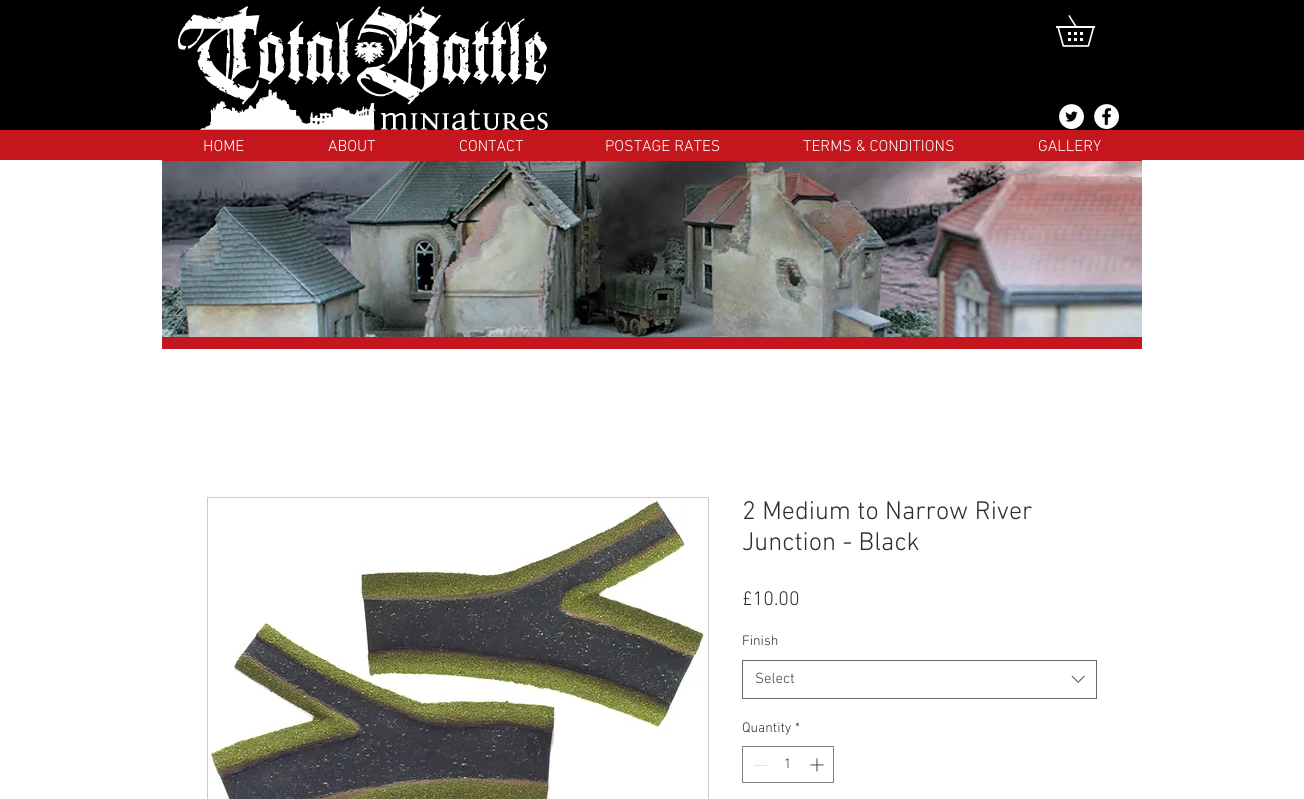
#include <cairo.h>
#include <math.h>
#include <stddef.h>


static void picture(cairo_t *cr, const char *path, double x, double y, double w, double h) {
    cairo_surface_t *image = cairo_image_surface_create_from_png(path);
    cairo_save(cr);
    cairo_set_source_surface(cr, image, x, y);
    cairo_rectangle(cr, x, y, w, h);
    cairo_fill(cr);
    cairo_restore(cr);
    cairo_surface_destroy(image);
}

int main(void) {
    cairo_surface_t *surface = cairo_image_surface_create(CAIRO_FORMAT_RGB24, 1304, 799);
    cairo_t *cr = cairo_create(surface);
    cairo_font_options_t *options = cairo_font_options_create();
    cairo_font_options_set_hint_metrics(options, CAIRO_HINT_METRICS_OFF);
    cairo_font_options_set_hint_style(options, CAIRO_HINT_STYLE_NONE);
    cairo_set_font_options(cr, options);
    cairo_set_miter_limit(cr, 4);
    cairo_set_source_rgb(cr, 1, 1, 1);
    cairo_paint(cr);
    picture(cr, "img1.png", 0, 0, 1304, 160);
    picture(cr, "img2.png", 178, 6, 370, 124);
    picture(cr, "img3.png", 1056, 15, 39, 32);
    picture(cr, "img4.png", 1059, 104, 25, 25);
    picture(cr, "img5.png", 1094, 104, 25, 25);
    cairo_set_source_rgb(cr, 0.769, 0.086, 0.11);
    cairo_rectangle(cr, 162, 160, 980, 1);
    cairo_fill(cr);
    cairo_select_font_face(cr, "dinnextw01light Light", CAIRO_FONT_SLANT_NORMAL, CAIRO_FONT_WEIGHT_NORMAL);
    cairo_set_font_size(cr, 16);
    cairo_set_source_rgb(cr, 1, 1, 1);
    cairo_move_to(cr, 203, 151);
    cairo_show_text(cr, "HOME");
    cairo_move_to(cr, 328, 151);
    cairo_show_text(cr, "ABOUT");
    cairo_move_to(cr, 459, 151);
    cairo_show_text(cr, "CONTACT");
    cairo_move_to(cr, 605, 151);
    cairo_show_text(cr, "POSTAGE RATES");
    cairo_move_to(cr, 803, 151);
    cairo_show_text(cr, "TERMS & CONDITIONS");
    cairo_move_to(cr, 1038, 151);
    cairo_show_text(cr, "GALLERY");
    picture(cr, "img6.png", 162, 161, 980, 176);
    cairo_set_font_size(cr, 22);
    cairo_set_source_rgb(cr, 0.596, 0.604, 0.557);
    cairo_move_to(cr, 172, 316);
    cairo_show_text(cr, "2");
    cairo_set_source_rgb(cr, 0.769, 0.086, 0.11);
    cairo_rectangle(cr, 162, 337, 980, 12);
    cairo_fill(cr);
    cairo_rectangle(cr, 207.5, 497.5, 501, 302);
    cairo_set_source_rgb(cr, 0.8, 0.8, 0.8);
    cairo_set_line_width(cr, 1);
    cairo_stroke(cr);
    picture(cr, "img7.png", 208, 498, 496, 301);
    cairo_set_font_size(cr, 26);
    cairo_set_source_rgb(cr, 0.184, 0.18, 0.18);
    cairo_move_to(cr, 742, 519);
    cairo_show_text(cr, "2 Medium to Narrow River");
    cairo_move_to(cr, 742, 550);
    cairo_show_text(cr, "Junction - Black");
    cairo_set_font_size(cr, 20);
    cairo_move_to(cr, 742, 605);
    cairo_show_text(cr, "£10.00");
    cairo_set_font_size(cr, 14);
    cairo_move_to(cr, 742, 645);
    cairo_show_text(cr, "Finish");
    cairo_rectangle(cr, 742.5, 660.5, 354, 38);
    cairo_set_source_rgb(cr, 0.4, 0.4, 0.4);
    cairo_stroke(cr);
    cairo_set_font_size(cr, 15);
    cairo_set_source_rgb(cr, 0.267, 0.267, 0.267);
    cairo_move_to(cr, 755, 683);
    cairo_show_text(cr, "Select");
    picture(cr, "img8.png", 1071, 675, 14, 8);
    cairo_set_font_size(cr, 14);
    cairo_set_source_rgb(cr, 0.184, 0.18, 0.18);
    cairo_move_to(cr, 742, 732);
    cairo_show_text(cr, "Quantity");
    cairo_move_to(cr, 795, 732);
    cairo_show_text(cr, "*");
    cairo_rectangle(cr, 742.5, 746.5, 91, 36);
    cairo_set_source_rgb(cr, 0.51, 0.51, 0.51);
    cairo_stroke(cr);
    cairo_set_source_rgb(cr, 0.89, 0.89, 0.89);
    cairo_rectangle(cr, 754, 765, 13, 1);
    cairo_fill(cr);
    cairo_set_source_rgb(cr, 0.184, 0.18, 0.18);
    cairo_move_to(cr, 784, 768);
    cairo_show_text(cr, "1");
    picture(cr, "img9.png", 810, 758, 14, 14);
    cairo_surface_write_to_png(surface, "page.png");
    cairo_font_options_destroy(options);
    cairo_destroy(cr);
    cairo_surface_destroy(surface);
    return 0;
}
